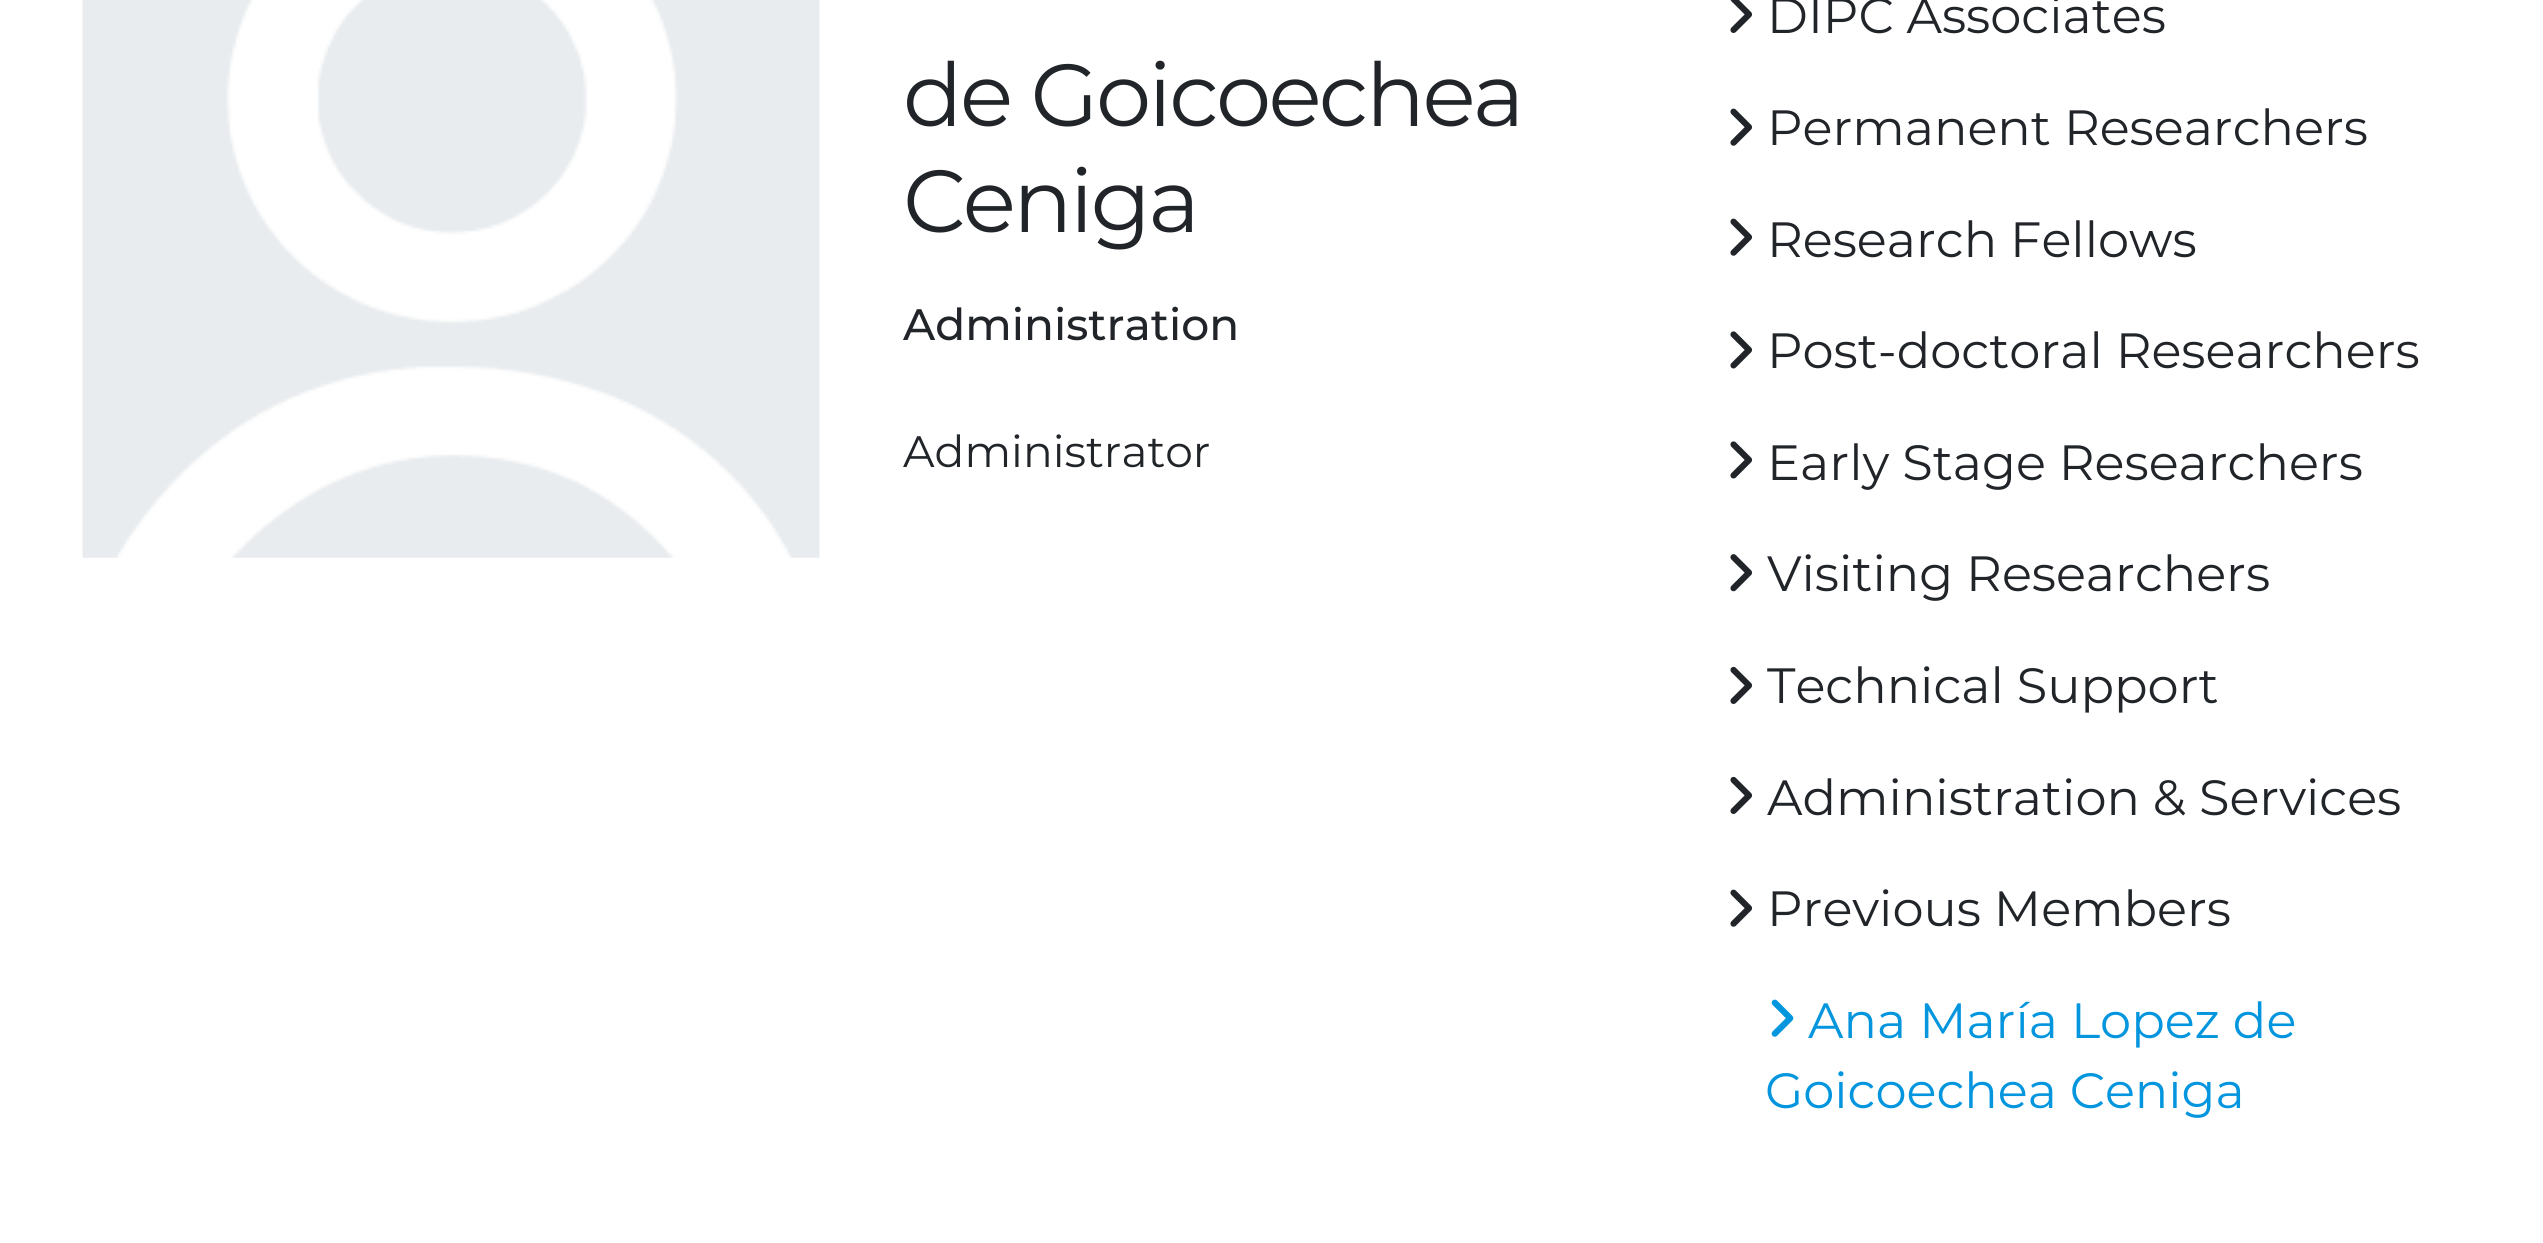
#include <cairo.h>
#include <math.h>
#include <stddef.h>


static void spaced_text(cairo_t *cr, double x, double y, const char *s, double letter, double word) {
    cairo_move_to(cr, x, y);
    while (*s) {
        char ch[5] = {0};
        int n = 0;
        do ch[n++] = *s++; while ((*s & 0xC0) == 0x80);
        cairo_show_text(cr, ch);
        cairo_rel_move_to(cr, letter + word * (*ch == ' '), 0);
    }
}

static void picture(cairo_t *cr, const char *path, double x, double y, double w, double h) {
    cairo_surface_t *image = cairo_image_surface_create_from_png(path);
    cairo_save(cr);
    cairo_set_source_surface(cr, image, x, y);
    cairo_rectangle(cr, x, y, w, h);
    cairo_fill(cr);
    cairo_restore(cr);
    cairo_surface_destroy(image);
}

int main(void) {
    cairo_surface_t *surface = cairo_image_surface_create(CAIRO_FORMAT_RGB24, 2543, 1243);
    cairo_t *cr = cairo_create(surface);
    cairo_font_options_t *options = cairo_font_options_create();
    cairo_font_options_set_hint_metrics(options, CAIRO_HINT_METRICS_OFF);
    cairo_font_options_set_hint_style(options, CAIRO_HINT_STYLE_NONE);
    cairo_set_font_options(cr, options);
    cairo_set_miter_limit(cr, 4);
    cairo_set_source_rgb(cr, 1, 1, 1);
    cairo_paint(cr);
    picture(cr, "img1.png", 82, 0, 738, 558);
    cairo_select_font_face(cr, "Montserrat", CAIRO_FONT_SLANT_NORMAL, CAIRO_FONT_WEIGHT_NORMAL);
    cairo_set_font_size(cr, 88);
    cairo_set_source_rgb(cr, 0.129, 0.145, 0.161);
    spaced_text(cr, 903, 126, "de Goicoechea", -2.75, 0);
    spaced_text(cr, 903, 232, "Ceniga", -2.75, 0);
    cairo_select_font_face(cr, "Montserrat Medium", CAIRO_FONT_SLANT_NORMAL, CAIRO_FONT_WEIGHT_NORMAL);
    cairo_set_font_size(cr, 44);
    cairo_move_to(cr, 903, 340);
    cairo_show_text(cr, "Administration");
    cairo_select_font_face(cr, "Montserrat", CAIRO_FONT_SLANT_NORMAL, CAIRO_FONT_WEIGHT_NORMAL);
    cairo_move_to(cr, 903, 467);
    cairo_show_text(cr, "Administrator");
    picture(cr, "img2.png", 1730, 0, 23, 33);
    cairo_set_font_size(cr, 49.5);
    cairo_move_to(cr, 1767, 33);
    cairo_show_text(cr, "DIPC Associates");
    picture(cr, "img3.png", 1730, 108, 23, 38);
    cairo_move_to(cr, 1767, 145);
    cairo_show_text(cr, "Permanent Researchers");
    picture(cr, "img3.png", 1730, 218, 23, 38);
    cairo_move_to(cr, 1767, 257);
    cairo_show_text(cr, "Research Fellows");
    picture(cr, "img4.png", 1730, 331, 23, 38);
    cairo_move_to(cr, 1767, 368);
    cairo_show_text(cr, "Post-doctoral Researchers");
    picture(cr, "img4.png", 1730, 441, 23, 38);
    cairo_move_to(cr, 1767, 480);
    cairo_show_text(cr, "Early Stage Researchers");
    picture(cr, "img5.png", 1730, 554, 23, 38);
    cairo_move_to(cr, 1767, 591);
    cairo_show_text(cr, "Visiting Researchers");
    picture(cr, "img6.png", 1730, 666, 23, 38);
    cairo_move_to(cr, 1767, 703);
    cairo_show_text(cr, "Technical Support");
    picture(cr, "img6.png", 1730, 776, 23, 38);
    cairo_move_to(cr, 1767, 815);
    cairo_show_text(cr, "Administration & Services");
    picture(cr, "img3.png", 1730, 889, 23, 38);
    cairo_move_to(cr, 1767, 926);
    cairo_show_text(cr, "Previous Members");
    picture(cr, "img7.png", 1771, 999, 23, 38);
    cairo_set_source_rgb(cr, 0.012, 0.584, 0.871);
    cairo_move_to(cr, 1808, 1038);
    cairo_show_text(cr, "Ana María Lopez de");
    cairo_move_to(cr, 1765, 1108);
    cairo_show_text(cr, "Goicoechea Ceniga");
    cairo_surface_write_to_png(surface, "page.png");
    cairo_font_options_destroy(options);
    cairo_destroy(cr);
    cairo_surface_destroy(surface);
    return 0;
}
